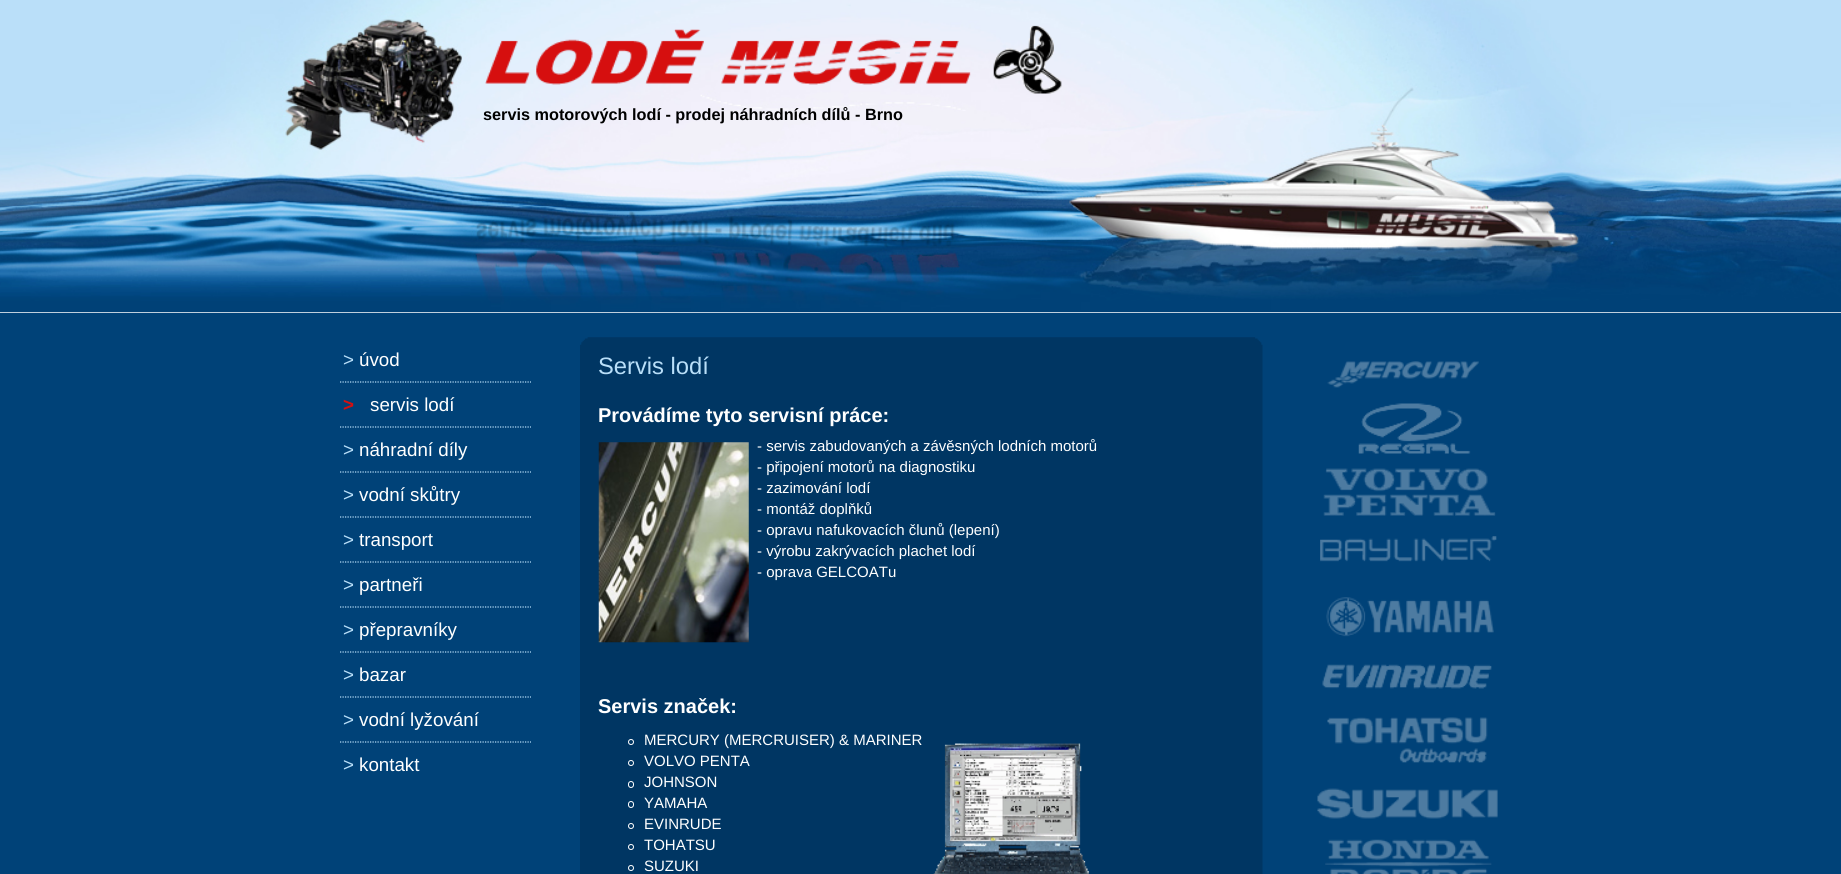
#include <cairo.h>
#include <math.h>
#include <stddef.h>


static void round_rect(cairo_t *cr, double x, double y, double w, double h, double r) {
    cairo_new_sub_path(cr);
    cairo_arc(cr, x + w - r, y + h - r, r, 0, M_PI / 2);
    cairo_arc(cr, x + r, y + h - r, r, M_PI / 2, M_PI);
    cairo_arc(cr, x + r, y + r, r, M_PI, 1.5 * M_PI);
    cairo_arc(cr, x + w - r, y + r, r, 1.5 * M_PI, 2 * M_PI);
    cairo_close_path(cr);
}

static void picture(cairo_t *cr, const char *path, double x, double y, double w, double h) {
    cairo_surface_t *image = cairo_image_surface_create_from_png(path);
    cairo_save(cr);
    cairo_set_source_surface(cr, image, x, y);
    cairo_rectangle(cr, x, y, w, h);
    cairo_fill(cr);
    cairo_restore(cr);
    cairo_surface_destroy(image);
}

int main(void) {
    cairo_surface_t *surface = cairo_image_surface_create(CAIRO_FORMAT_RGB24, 1841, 874);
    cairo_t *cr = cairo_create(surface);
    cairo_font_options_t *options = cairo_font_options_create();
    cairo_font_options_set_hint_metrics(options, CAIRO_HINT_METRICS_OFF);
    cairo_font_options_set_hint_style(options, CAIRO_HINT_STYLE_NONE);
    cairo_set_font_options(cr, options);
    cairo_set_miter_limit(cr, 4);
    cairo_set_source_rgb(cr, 0, 0.259, 0.471);
    cairo_paint(cr);
    cairo_set_source_rgb(cr, 1, 1, 1);
    cairo_rectangle(cr, 0, 312, 1841, 1);
    cairo_fill(cr);
    picture(cr, "img1.png", 0, 0, 1841, 313);
    picture(cr, "img2.png", 485, 25, 577, 69);
    cairo_select_font_face(cr, "Liberation Sans", CAIRO_FONT_SLANT_NORMAL, CAIRO_FONT_WEIGHT_BOLD);
    cairo_set_font_size(cr, 16.25);
    cairo_set_source_rgb(cr, 0, 0, 0);
    cairo_move_to(cr, 483, 120);
    cairo_show_text(cr, "servis motorových lodí - prodej náhradních dílů - Brno");
    cairo_new_path(cr);
    cairo_move_to(cr, 340, 382);
    cairo_line_to(cr, 531, 382);
    cairo_set_source_rgb(cr, 0.725, 0.875, 0.973);
    cairo_set_line_width(cr, 1.2);
    cairo_set_dash(cr, (double[]){1.25, 1.25}, 2, 0);
    cairo_stroke(cr);
    cairo_select_font_face(cr, "Liberation Sans", CAIRO_FONT_SLANT_NORMAL, CAIRO_FONT_WEIGHT_NORMAL);
    cairo_set_font_size(cr, 18.75);
    cairo_move_to(cr, 343, 366);
    cairo_show_text(cr, ">");
    cairo_set_source_rgb(cr, 1, 1, 1);
    cairo_move_to(cr, 359, 366);
    cairo_show_text(cr, "úvod");
    cairo_new_path(cr);
    cairo_move_to(cr, 340, 427);
    cairo_line_to(cr, 531, 427);
    cairo_set_source_rgb(cr, 0.725, 0.875, 0.973);
    cairo_stroke(cr);
    cairo_select_font_face(cr, "Liberation Sans", CAIRO_FONT_SLANT_NORMAL, CAIRO_FONT_WEIGHT_BOLD);
    cairo_set_source_rgb(cr, 0.839, 0.059, 0.059);
    cairo_move_to(cr, 343, 411);
    cairo_show_text(cr, ">");
    cairo_select_font_face(cr, "Liberation Sans", CAIRO_FONT_SLANT_NORMAL, CAIRO_FONT_WEIGHT_NORMAL);
    cairo_set_source_rgb(cr, 1, 1, 1);
    cairo_move_to(cr, 370, 411);
    cairo_show_text(cr, "servis lodí");
    cairo_new_path(cr);
    cairo_move_to(cr, 340, 472);
    cairo_line_to(cr, 531, 472);
    cairo_set_source_rgb(cr, 0.725, 0.875, 0.973);
    cairo_stroke(cr);
    cairo_move_to(cr, 343, 456);
    cairo_show_text(cr, ">");
    cairo_set_source_rgb(cr, 1, 1, 1);
    cairo_move_to(cr, 359, 456);
    cairo_show_text(cr, "náhradní díly");
    cairo_new_path(cr);
    cairo_move_to(cr, 340, 517);
    cairo_line_to(cr, 531, 517);
    cairo_set_source_rgb(cr, 0.725, 0.875, 0.973);
    cairo_stroke(cr);
    cairo_move_to(cr, 343, 501);
    cairo_show_text(cr, ">");
    cairo_set_source_rgb(cr, 1, 1, 1);
    cairo_move_to(cr, 359, 501);
    cairo_show_text(cr, "vodní skůtry");
    cairo_new_path(cr);
    cairo_move_to(cr, 340, 562);
    cairo_line_to(cr, 531, 562);
    cairo_set_source_rgb(cr, 0.725, 0.875, 0.973);
    cairo_stroke(cr);
    cairo_move_to(cr, 343, 546);
    cairo_show_text(cr, ">");
    cairo_set_source_rgb(cr, 1, 1, 1);
    cairo_move_to(cr, 359, 546);
    cairo_show_text(cr, "transport");
    cairo_new_path(cr);
    cairo_move_to(cr, 340, 607);
    cairo_line_to(cr, 531, 607);
    cairo_set_source_rgb(cr, 0.725, 0.875, 0.973);
    cairo_stroke(cr);
    cairo_move_to(cr, 343, 591);
    cairo_show_text(cr, ">");
    cairo_set_source_rgb(cr, 1, 1, 1);
    cairo_move_to(cr, 359, 591);
    cairo_show_text(cr, "partneři");
    cairo_new_path(cr);
    cairo_move_to(cr, 340, 652);
    cairo_line_to(cr, 531, 652);
    cairo_set_source_rgb(cr, 0.725, 0.875, 0.973);
    cairo_stroke(cr);
    cairo_move_to(cr, 343, 636);
    cairo_show_text(cr, ">");
    cairo_set_source_rgb(cr, 1, 1, 1);
    cairo_move_to(cr, 359, 636);
    cairo_show_text(cr, "přepravníky");
    cairo_new_path(cr);
    cairo_move_to(cr, 340, 697);
    cairo_line_to(cr, 531, 697);
    cairo_set_source_rgb(cr, 0.725, 0.875, 0.973);
    cairo_stroke(cr);
    cairo_move_to(cr, 343, 681);
    cairo_show_text(cr, ">");
    cairo_set_source_rgb(cr, 1, 1, 1);
    cairo_move_to(cr, 359, 681);
    cairo_show_text(cr, "bazar");
    cairo_new_path(cr);
    cairo_move_to(cr, 340, 742);
    cairo_line_to(cr, 531, 742);
    cairo_set_source_rgb(cr, 0.725, 0.875, 0.973);
    cairo_stroke(cr);
    cairo_move_to(cr, 343, 726);
    cairo_show_text(cr, ">");
    cairo_set_source_rgb(cr, 1, 1, 1);
    cairo_move_to(cr, 359, 726);
    cairo_show_text(cr, "vodní lyžování");
    cairo_set_source_rgb(cr, 0.725, 0.875, 0.973);
    cairo_move_to(cr, 343, 771);
    cairo_show_text(cr, ">");
    cairo_set_source_rgb(cr, 1, 1, 1);
    cairo_move_to(cr, 359, 771);
    cairo_show_text(cr, "kontakt");
    picture(cr, "img3.png", 580, 337, 683, 537);
    cairo_set_font_size(cr, 23.75);
    cairo_set_source_rgb(cr, 0.725, 0.875, 0.973);
    cairo_move_to(cr, 598, 374);
    cairo_show_text(cr, "Servis lodí");
    cairo_select_font_face(cr, "Liberation Sans", CAIRO_FONT_SLANT_NORMAL, CAIRO_FONT_WEIGHT_BOLD);
    cairo_set_font_size(cr, 20);
    cairo_set_source_rgb(cr, 1, 1, 1);
    cairo_move_to(cr, 598, 422);
    cairo_show_text(cr, "Provádíme tyto servisní práce:");
    picture(cr, "img4.png", 598, 442, 151, 201);
    cairo_select_font_face(cr, "Liberation Sans", CAIRO_FONT_SLANT_NORMAL, CAIRO_FONT_WEIGHT_NORMAL);
    cairo_set_font_size(cr, 15);
    cairo_move_to(cr, 757, 451);
    cairo_show_text(cr, "- servis zabudovaných a závěsných lodních motorů");
    cairo_move_to(cr, 757, 472);
    cairo_show_text(cr, "- připojení motorů na diagnostiku");
    cairo_move_to(cr, 757, 493);
    cairo_show_text(cr, "- zazimování lodí");
    cairo_move_to(cr, 757, 514);
    cairo_show_text(cr, "- montáž doplňků");
    cairo_move_to(cr, 757, 535);
    cairo_show_text(cr, "- opravu nafukovacích člunů (lepení)");
    cairo_move_to(cr, 757, 556);
    cairo_show_text(cr, "- výrobu zakrývacích plachet lodí");
    cairo_move_to(cr, 757, 577);
    cairo_show_text(cr, "- oprava GELCOATu");
    cairo_select_font_face(cr, "Liberation Sans", CAIRO_FONT_SLANT_NORMAL, CAIRO_FONT_WEIGHT_BOLD);
    cairo_set_font_size(cr, 20);
    cairo_move_to(cr, 598, 713);
    cairo_show_text(cr, "Servis značek:");
    cairo_new_path(cr);
    cairo_arc(cr, 631, 742, 2.5, 0, 2 * M_PI);
    cairo_set_line_width(cr, 1);
    cairo_set_dash(cr, NULL, 0, 0);
    cairo_stroke(cr);
    cairo_select_font_face(cr, "Liberation Sans", CAIRO_FONT_SLANT_NORMAL, CAIRO_FONT_WEIGHT_NORMAL);
    cairo_set_font_size(cr, 15);
    cairo_move_to(cr, 644, 745);
    cairo_show_text(cr, "MERCURY (MERCRUISER) & MARINER");
    cairo_new_path(cr);
    cairo_arc(cr, 631, 763, 2.5, 0, 2 * M_PI);
    cairo_stroke(cr);
    cairo_move_to(cr, 644, 766);
    cairo_show_text(cr, "VOLVO PENTA");
    round_rect(cr, 628.5, 781.5, 5, 6, 2.5);
    cairo_stroke(cr);
    cairo_move_to(cr, 644, 787);
    cairo_show_text(cr, "JOHNSON");
    round_rect(cr, 628.5, 801.5, 5, 6, 2.5);
    cairo_stroke(cr);
    cairo_move_to(cr, 644, 808);
    cairo_show_text(cr, "YAMAHA");
    cairo_new_path(cr);
    cairo_arc(cr, 631, 826, 2.5, 0, 2 * M_PI);
    cairo_stroke(cr);
    cairo_move_to(cr, 644, 829);
    cairo_show_text(cr, "EVINRUDE");
    cairo_new_path(cr);
    cairo_arc(cr, 631, 847, 2.5, 0, 2 * M_PI);
    cairo_stroke(cr);
    cairo_move_to(cr, 644, 850);
    cairo_show_text(cr, "TOHATSU");
    cairo_new_path(cr);
    cairo_arc(cr, 631, 868, 2.5, 0, 2 * M_PI);
    cairo_stroke(cr);
    cairo_move_to(cr, 644, 871);
    cairo_show_text(cr, "SUZUKI");
    picture(cr, "img5.png", 933, 743, 156, 131);
    picture(cr, "img6.png", 1327, 361, 152, 27);
    picture(cr, "img7.png", 1358, 403, 113, 51);
    picture(cr, "img8.png", 1323, 468, 173, 48);
    picture(cr, "img9.png", 1320, 536, 177, 26);
    picture(cr, "img10.png", 1326, 597, 168, 40);
    picture(cr, "img11.png", 1322, 664, 170, 25);
    picture(cr, "img12.png", 1327, 717, 161, 46);
    picture(cr, "img13.png", 1317, 788, 181, 31);
    picture(cr, "img14.png", 1325, 839, 167, 35);
    cairo_surface_write_to_png(surface, "page.png");
    cairo_font_options_destroy(options);
    cairo_destroy(cr);
    cairo_surface_destroy(surface);
    return 0;
}
